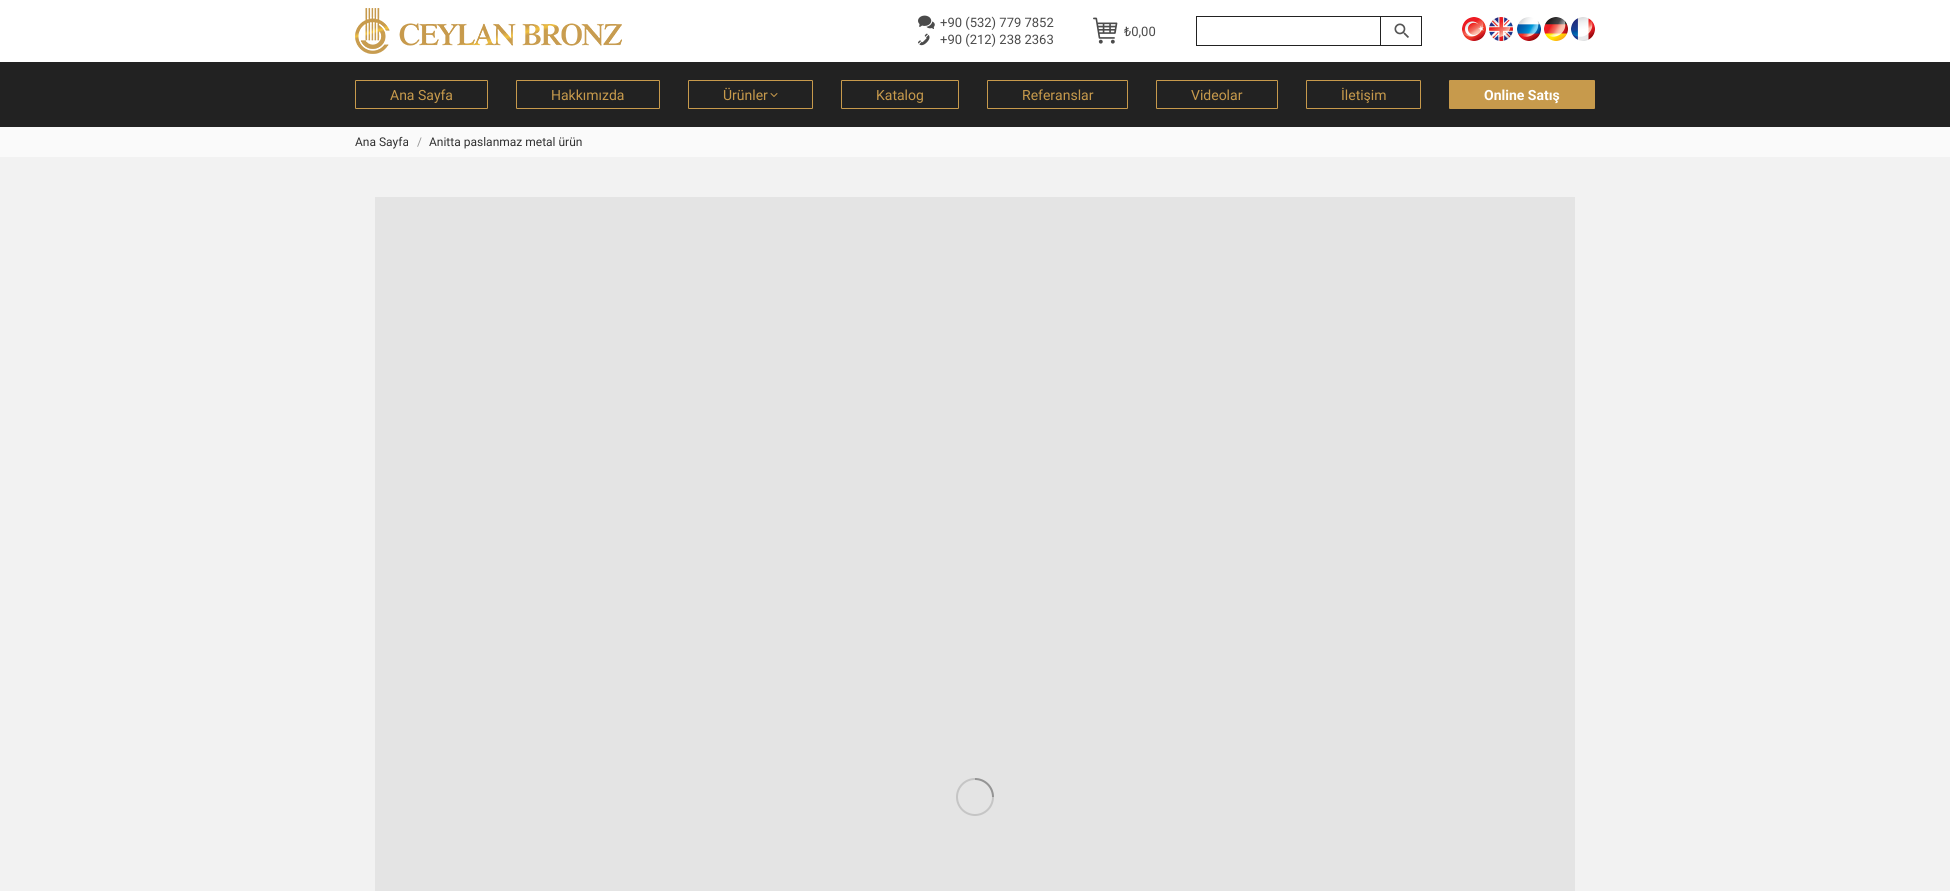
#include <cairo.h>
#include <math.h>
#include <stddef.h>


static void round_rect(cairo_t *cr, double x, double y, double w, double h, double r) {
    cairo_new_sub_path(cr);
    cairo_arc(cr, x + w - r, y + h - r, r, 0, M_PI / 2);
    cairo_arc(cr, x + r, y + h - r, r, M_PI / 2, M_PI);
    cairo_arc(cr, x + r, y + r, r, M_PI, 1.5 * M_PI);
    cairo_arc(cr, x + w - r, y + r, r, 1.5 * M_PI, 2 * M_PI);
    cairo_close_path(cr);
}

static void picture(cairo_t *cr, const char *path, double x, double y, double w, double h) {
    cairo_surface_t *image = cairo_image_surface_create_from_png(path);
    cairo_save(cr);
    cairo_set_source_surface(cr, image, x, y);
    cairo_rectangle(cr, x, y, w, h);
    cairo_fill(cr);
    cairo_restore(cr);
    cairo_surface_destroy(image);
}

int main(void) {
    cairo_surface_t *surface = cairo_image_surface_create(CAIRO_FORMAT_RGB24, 1950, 891);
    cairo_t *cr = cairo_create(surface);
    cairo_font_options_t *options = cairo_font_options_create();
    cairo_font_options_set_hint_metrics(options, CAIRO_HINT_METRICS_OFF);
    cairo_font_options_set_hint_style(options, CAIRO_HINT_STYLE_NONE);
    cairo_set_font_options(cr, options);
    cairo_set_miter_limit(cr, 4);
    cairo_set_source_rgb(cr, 0.949, 0.949, 0.949);
    cairo_paint(cr);
    cairo_set_source_rgb(cr, 1, 1, 1);
    cairo_rectangle(cr, 0, 0, 1950, 62);
    cairo_fill(cr);
    picture(cr, "img1.png", 355, 8, 267, 46);
    picture(cr, "img2.png", 918, 15, 17, 14);
    cairo_select_font_face(cr, "Roboto", CAIRO_FONT_SLANT_NORMAL, CAIRO_FONT_WEIGHT_NORMAL);
    cairo_set_font_size(cr, 13);
    cairo_set_source_rgb(cr, 0.294, 0.294, 0.294);
    cairo_move_to(cr, 940, 27);
    cairo_show_text(cr, "+90 (532) 779 7852");
    picture(cr, "img3.png", 918, 33, 12, 13);
    cairo_move_to(cr, 940, 44);
    cairo_show_text(cr, "+90 (212) 238 2363");
    picture(cr, "img4.png", 1093, 17, 25, 27);
    cairo_move_to(cr, 1124, 36);
    cairo_show_text(cr, "₺0,00");
    cairo_rectangle(cr, 1380.5, 16.5, 41, 29);
    cairo_set_source_rgb(cr, 0.133, 0.133, 0.133);
    cairo_set_line_width(cr, 1);
    cairo_stroke(cr);
    cairo_rectangle(cr, 1196.5, 16.5, 184, 29);
    cairo_stroke(cr);
    picture(cr, "img5.png", 1394, 23, 15, 15);
    picture(cr, "img6.png", 1462, 17, 24, 24);
    picture(cr, "img7.png", 1489, 17, 24, 24);
    picture(cr, "img8.png", 1517, 17, 24, 24);
    picture(cr, "img9.png", 1544, 17, 24, 24);
    picture(cr, "img10.png", 1571, 17, 24, 24);
    cairo_rectangle(cr, 0, 62, 1950, 65);
    cairo_fill(cr);
    round_rect(cr, 355.5, 80.5, 132, 28, 0.5);
    cairo_set_source_rgb(cr, 0.78, 0.604, 0.298);
    cairo_stroke(cr);
    cairo_set_font_size(cr, 14);
    cairo_move_to(cr, 390, 100);
    cairo_show_text(cr, "Ana Sayfa");
    round_rect(cr, 516.5, 80.5, 143, 28, 0.5);
    cairo_stroke(cr);
    cairo_move_to(cr, 551, 100);
    cairo_show_text(cr, "Hakkımızda");
    round_rect(cr, 688.5, 80.5, 124, 28, 0.5);
    cairo_stroke(cr);
    cairo_move_to(cr, 723, 100);
    cairo_show_text(cr, "Ürünler");
    picture(cr, "img11.png", 770, 93, 8, 4);
    round_rect(cr, 841.5, 80.5, 117, 28, 0.5);
    cairo_stroke(cr);
    cairo_move_to(cr, 876, 100);
    cairo_show_text(cr, "Katalog");
    round_rect(cr, 987.5, 80.5, 140, 28, 0.5);
    cairo_stroke(cr);
    cairo_move_to(cr, 1022, 100);
    cairo_show_text(cr, "Referanslar");
    round_rect(cr, 1156.5, 80.5, 121, 28, 0.5);
    cairo_stroke(cr);
    cairo_move_to(cr, 1191, 100);
    cairo_show_text(cr, "Videolar");
    round_rect(cr, 1306.5, 80.5, 114, 28, 0.5);
    cairo_stroke(cr);
    cairo_move_to(cr, 1341, 100);
    cairo_show_text(cr, "İletişim");
    round_rect(cr, 1449.5, 80.5, 145, 28, 0.5);
    cairo_fill_preserve(cr);
    cairo_stroke(cr);
    cairo_select_font_face(cr, "Roboto", CAIRO_FONT_SLANT_NORMAL, CAIRO_FONT_WEIGHT_BOLD);
    cairo_set_source_rgb(cr, 1, 1, 1);
    cairo_move_to(cr, 1484, 100);
    cairo_show_text(cr, "Online Satış");
    cairo_set_source_rgb(cr, 0.98, 0.98, 0.98);
    cairo_rectangle(cr, 0, 127, 1950, 30);
    cairo_fill(cr);
    cairo_select_font_face(cr, "Roboto", CAIRO_FONT_SLANT_NORMAL, CAIRO_FONT_WEIGHT_NORMAL);
    cairo_set_font_size(cr, 12);
    cairo_set_source_rgb(cr, 0.192, 0.192, 0.192);
    cairo_move_to(cr, 355, 146);
    cairo_show_text(cr, "Ana Sayfa");
    cairo_set_source_rgb(cr, 0.588, 0.588, 0.588);
    cairo_move_to(cr, 417, 146);
    cairo_show_text(cr, "/");
    cairo_set_source_rgb(cr, 0.192, 0.192, 0.192);
    cairo_move_to(cr, 429, 146);
    cairo_show_text(cr, "Anitta paslanmaz metal ürün");
    cairo_set_source_rgb(cr, 0.894, 0.894, 0.894);
    cairo_rectangle(cr, 375, 197, 1200, 694);
    cairo_fill(cr);
    cairo_arc(cr, 975, 797, 18, 0, 2 * M_PI);
    cairo_set_source_rgb(cr, 0.773, 0.773, 0.773);
    cairo_set_line_width(cr, 2);
    cairo_stroke(cr);
    cairo_new_path(cr);
    cairo_move_to(cr, 993, 797);
    cairo_curve_to(cr, 993, 787, 985, 779, 975, 779);
    cairo_set_source_rgba(cr, 0, 0, 0, 0.25);
    cairo_stroke(cr);
    cairo_surface_write_to_png(surface, "page.png");
    cairo_font_options_destroy(options);
    cairo_destroy(cr);
    cairo_surface_destroy(surface);
    return 0;
}
